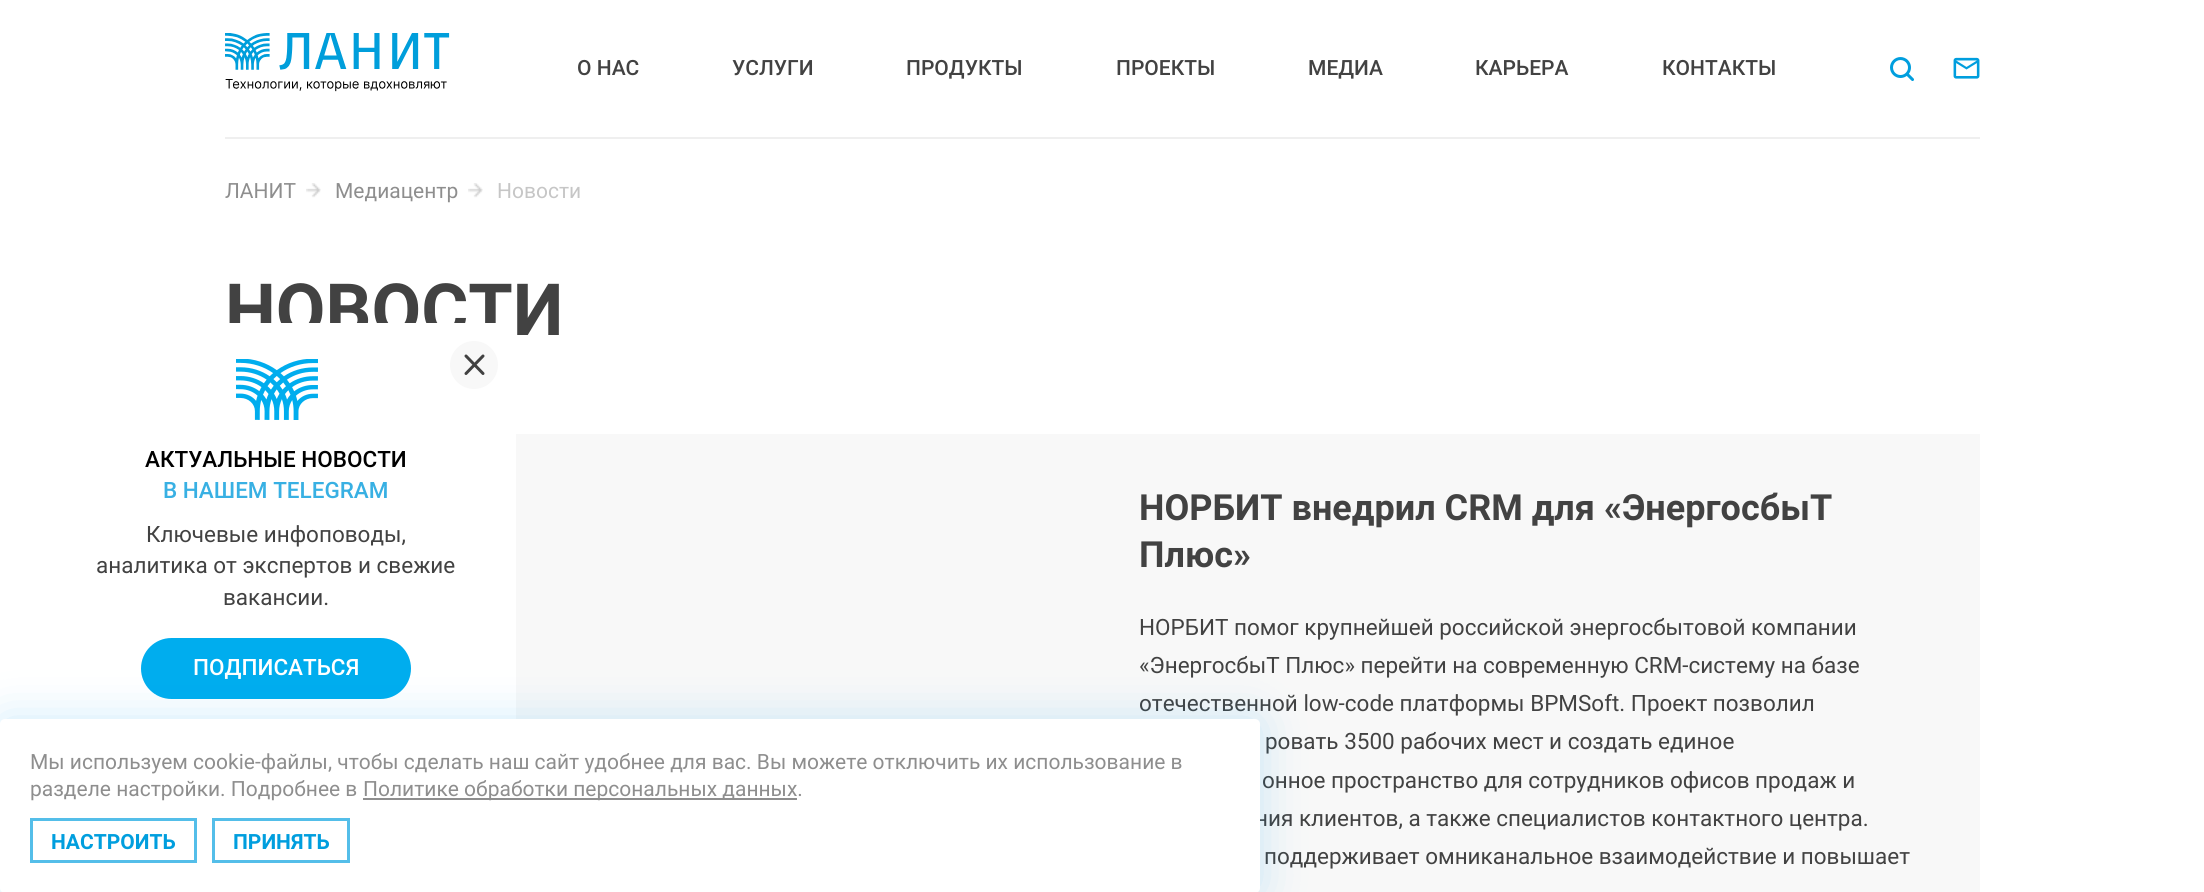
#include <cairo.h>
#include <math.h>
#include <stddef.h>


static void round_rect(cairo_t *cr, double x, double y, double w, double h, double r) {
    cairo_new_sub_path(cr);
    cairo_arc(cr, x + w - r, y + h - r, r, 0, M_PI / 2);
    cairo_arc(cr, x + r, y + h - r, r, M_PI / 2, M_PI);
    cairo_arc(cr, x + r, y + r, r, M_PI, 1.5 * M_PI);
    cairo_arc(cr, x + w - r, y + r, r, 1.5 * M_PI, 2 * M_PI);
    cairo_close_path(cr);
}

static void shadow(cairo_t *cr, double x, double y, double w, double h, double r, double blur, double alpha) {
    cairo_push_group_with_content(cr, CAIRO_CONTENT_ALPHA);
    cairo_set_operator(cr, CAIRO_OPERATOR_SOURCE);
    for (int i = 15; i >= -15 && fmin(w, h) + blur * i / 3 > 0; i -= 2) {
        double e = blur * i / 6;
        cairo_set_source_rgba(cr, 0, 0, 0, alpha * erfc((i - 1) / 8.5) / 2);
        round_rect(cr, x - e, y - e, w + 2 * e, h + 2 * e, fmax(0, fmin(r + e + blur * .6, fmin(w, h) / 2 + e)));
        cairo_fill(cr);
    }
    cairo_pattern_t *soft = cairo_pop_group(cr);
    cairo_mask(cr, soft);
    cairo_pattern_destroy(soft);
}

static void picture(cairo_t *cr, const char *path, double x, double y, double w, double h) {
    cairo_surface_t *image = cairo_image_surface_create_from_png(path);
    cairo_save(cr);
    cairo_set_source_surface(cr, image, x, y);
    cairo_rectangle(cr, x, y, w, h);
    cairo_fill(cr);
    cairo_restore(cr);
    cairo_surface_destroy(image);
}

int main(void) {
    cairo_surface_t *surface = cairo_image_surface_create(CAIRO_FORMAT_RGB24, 2204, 892);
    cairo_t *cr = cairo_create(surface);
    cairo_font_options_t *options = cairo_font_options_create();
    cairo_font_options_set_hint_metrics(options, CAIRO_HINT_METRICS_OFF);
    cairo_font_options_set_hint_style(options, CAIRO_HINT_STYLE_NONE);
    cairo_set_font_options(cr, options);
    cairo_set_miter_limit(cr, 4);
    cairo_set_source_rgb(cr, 1, 1, 1);
    cairo_paint(cr);
    picture(cr, "img1.png", 225, 33, 225, 59);
    cairo_select_font_face(cr, "Roboto Medium", CAIRO_FONT_SLANT_NORMAL, CAIRO_FONT_WEIGHT_NORMAL);
    cairo_set_font_size(cr, 21);
    cairo_set_source_rgb(cr, 0.259, 0.259, 0.259);
    cairo_move_to(cr, 577, 75);
    cairo_show_text(cr, "О НАС");
    cairo_move_to(cr, 732, 75);
    cairo_show_text(cr, "УСЛУГИ");
    cairo_move_to(cr, 906, 75);
    cairo_show_text(cr, "ПРОДУКТЫ");
    cairo_move_to(cr, 1116, 75);
    cairo_show_text(cr, "ПРОЕКТЫ");
    cairo_move_to(cr, 1308, 75);
    cairo_show_text(cr, "МЕДИА");
    cairo_move_to(cr, 1475, 75);
    cairo_show_text(cr, "КАРЬЕРА");
    cairo_move_to(cr, 1662, 75);
    cairo_show_text(cr, "КОНТАКТЫ");
    picture(cr, "img2.png", 1890, 57, 24, 24);
    picture(cr, "img3.png", 1953, 57, 27, 22);
    cairo_set_source_rgb(cr, 0.937, 0.937, 0.937);
    cairo_rectangle(cr, 225, 137, 1755, 2);
    cairo_fill(cr);
    cairo_select_font_face(cr, "Roboto", CAIRO_FONT_SLANT_NORMAL, CAIRO_FONT_WEIGHT_NORMAL);
    cairo_set_source_rgb(cr, 0.557, 0.557, 0.557);
    cairo_move_to(cr, 225, 198);
    cairo_show_text(cr, "ЛАНИТ");
    picture(cr, "img4.png", 306, 183, 15, 15);
    cairo_move_to(cr, 335, 198);
    cairo_show_text(cr, "Медиацентр");
    picture(cr, "img4.png", 468, 183, 15, 15);
    cairo_set_source_rgb(cr, 0.776, 0.776, 0.776);
    cairo_move_to(cr, 497, 198);
    cairo_show_text(cr, "Новости");
    cairo_select_font_face(cr, "Roboto", CAIRO_FONT_SLANT_NORMAL, CAIRO_FONT_WEIGHT_BOLD);
    cairo_set_font_size(cr, 72);
    cairo_set_source_rgb(cr, 0.259, 0.259, 0.259);
    cairo_move_to(cr, 225, 335);
    cairo_show_text(cr, "НОВОСТИ");
    cairo_set_source_rgb(cr, 0.969, 0.969, 0.969);
    cairo_rectangle(cr, 516, 434, 1464, 458);
    cairo_fill(cr);
    cairo_set_font_size(cr, 36);
    cairo_set_source_rgb(cr, 0.259, 0.259, 0.259);
    cairo_move_to(cr, 1139, 520);
    cairo_show_text(cr, "НОРБИТ внедрил CRM для «ЭнергосбыТ");
    cairo_move_to(cr, 1139, 567);
    cairo_show_text(cr, "Плюс»");
    cairo_select_font_face(cr, "Roboto", CAIRO_FONT_SLANT_NORMAL, CAIRO_FONT_WEIGHT_NORMAL);
    cairo_set_font_size(cr, 22.5);
    cairo_move_to(cr, 1139, 635);
    cairo_show_text(cr, "НОРБИТ помог крупнейшей российской энергосбытовой компании");
    cairo_move_to(cr, 1139, 673);
    cairo_show_text(cr, "«ЭнергосбыТ Плюс» перейти на современную CRM-систему на базе");
    cairo_move_to(cr, 1139, 711);
    cairo_show_text(cr, "отечественной low-code платформы BPMSoft. Проект позволил");
    cairo_move_to(cr, 1265, 749);
    cairo_show_text(cr, "ровать 3500 рабочих мест и создать единое");
    cairo_move_to(cr, 1262, 788);
    cairo_show_text(cr, "онное пространство для сотрудников офисов продаж и");
    cairo_move_to(cr, 1255, 826);
    cairo_show_text(cr, "ния клиентов, а также специалистов контактного центра.");
    cairo_move_to(cr, 1264, 864);
    cairo_show_text(cr, "поддерживает омниканальное взаимодействие и повышает");
    cairo_set_source_rgb(cr, 1, 1, 1);
    round_rect(cr, 36, 323, 480, 420, 5);
    cairo_fill(cr);
    cairo_set_source_rgb(cr, 0.969, 0.969, 0.969);
    cairo_arc(cr, 474, 365, 24, 0, 2 * M_PI);
    cairo_fill(cr);
    cairo_new_path(cr);
    cairo_move_to(cr, 466, 356);
    cairo_line_to(cr, 483, 373.5);
    cairo_move_to(cr, 466, 373.5);
    cairo_line_to(cr, 483, 356);
    cairo_set_source_rgb(cr, 0.255, 0.255, 0.255);
    cairo_set_line_width(cr, 3);
    cairo_set_line_cap(cr, CAIRO_LINE_CAP_ROUND);
    cairo_set_line_join(cr, CAIRO_LINE_JOIN_ROUND);
    cairo_stroke(cr);
    picture(cr, "img5.png", 236, 359, 82, 61);
    cairo_select_font_face(cr, "Roboto Medium", CAIRO_FONT_SLANT_NORMAL, CAIRO_FONT_WEIGHT_NORMAL);
    cairo_set_source_rgb(cr, 0, 0, 0);
    cairo_move_to(cr, 145, 467);
    cairo_show_text(cr, "АКТУАЛЬНЫЕ НОВОСТИ");
    cairo_set_source_rgb(cr, 0.22, 0.69, 0.89);
    cairo_move_to(cr, 163, 498);
    cairo_show_text(cr, "В НАШЕМ TELEGRAM");
    cairo_select_font_face(cr, "Roboto", CAIRO_FONT_SLANT_NORMAL, CAIRO_FONT_WEIGHT_NORMAL);
    cairo_set_source_rgb(cr, 0.259, 0.259, 0.259);
    cairo_move_to(cr, 146, 542);
    cairo_show_text(cr, "Ключевые инфоповоды,");
    cairo_move_to(cr, 96, 573);
    cairo_show_text(cr, "аналитика от экспертов и свежие");
    cairo_move_to(cr, 223, 605);
    cairo_show_text(cr, "вакансии.");
    cairo_set_source_rgb(cr, 0, 0.678, 0.933);
    round_rect(cr, 141, 638, 270, 61, 30.5);
    cairo_fill(cr);
    cairo_select_font_face(cr, "Roboto Medium", CAIRO_FONT_SLANT_NORMAL, CAIRO_FONT_WEIGHT_NORMAL);
    cairo_set_source_rgb(cr, 1, 1, 1);
    cairo_move_to(cr, 193, 675);
    cairo_show_text(cr, "ПОДПИСАТЬСЯ");
    cairo_set_source_rgb(cr, 0, 0.584, 0.933);
    shadow(cr, 0, 719, 1260, 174, 5, 22.5, 0.2);
    cairo_set_source_rgb(cr, 1, 1, 1);
    round_rect(cr, 0, 719, 1260, 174, 5);
    cairo_fill(cr);
    cairo_select_font_face(cr, "Roboto", CAIRO_FONT_SLANT_NORMAL, CAIRO_FONT_WEIGHT_NORMAL);
    cairo_set_font_size(cr, 21);
    cairo_set_source_rgb(cr, 0.557, 0.557, 0.557);
    cairo_move_to(cr, 30, 769);
    cairo_show_text(cr, "Мы используем cookie-файлы, чтобы сделать наш сайт удобнее для вас. Вы можете отключить их использование в");
    cairo_move_to(cr, 30, 796);
    cairo_show_text(cr, "разделе настройки. Подробнее в");
    cairo_rectangle(cr, 363, 798, 434, 2);
    cairo_fill(cr);
    cairo_move_to(cr, 363, 796);
    cairo_show_text(cr, "Политике обработки персональных данных.");
    cairo_rectangle(cr, 31.5, 819.5, 164, 42);
    cairo_set_source_rgb(cr, 0.329, 0.745, 0.914);
    cairo_set_line_cap(cr, CAIRO_LINE_CAP_BUTT);
    cairo_set_line_join(cr, CAIRO_LINE_JOIN_MITER);
    cairo_stroke(cr);
    cairo_select_font_face(cr, "Roboto", CAIRO_FONT_SLANT_NORMAL, CAIRO_FONT_WEIGHT_BOLD);
    cairo_set_source_rgb(cr, 0, 0.62, 0.871);
    cairo_move_to(cr, 51, 849);
    cairo_show_text(cr, "НАСТРОИТЬ");
    cairo_rectangle(cr, 213.5, 819.5, 135, 42);
    cairo_set_source_rgb(cr, 0.329, 0.745, 0.914);
    cairo_stroke(cr);
    cairo_set_source_rgb(cr, 0, 0.62, 0.871);
    cairo_move_to(cr, 233, 849);
    cairo_show_text(cr, "ПРИНЯТЬ");
    cairo_surface_write_to_png(surface, "page.png");
    cairo_font_options_destroy(options);
    cairo_destroy(cr);
    cairo_surface_destroy(surface);
    return 0;
}
